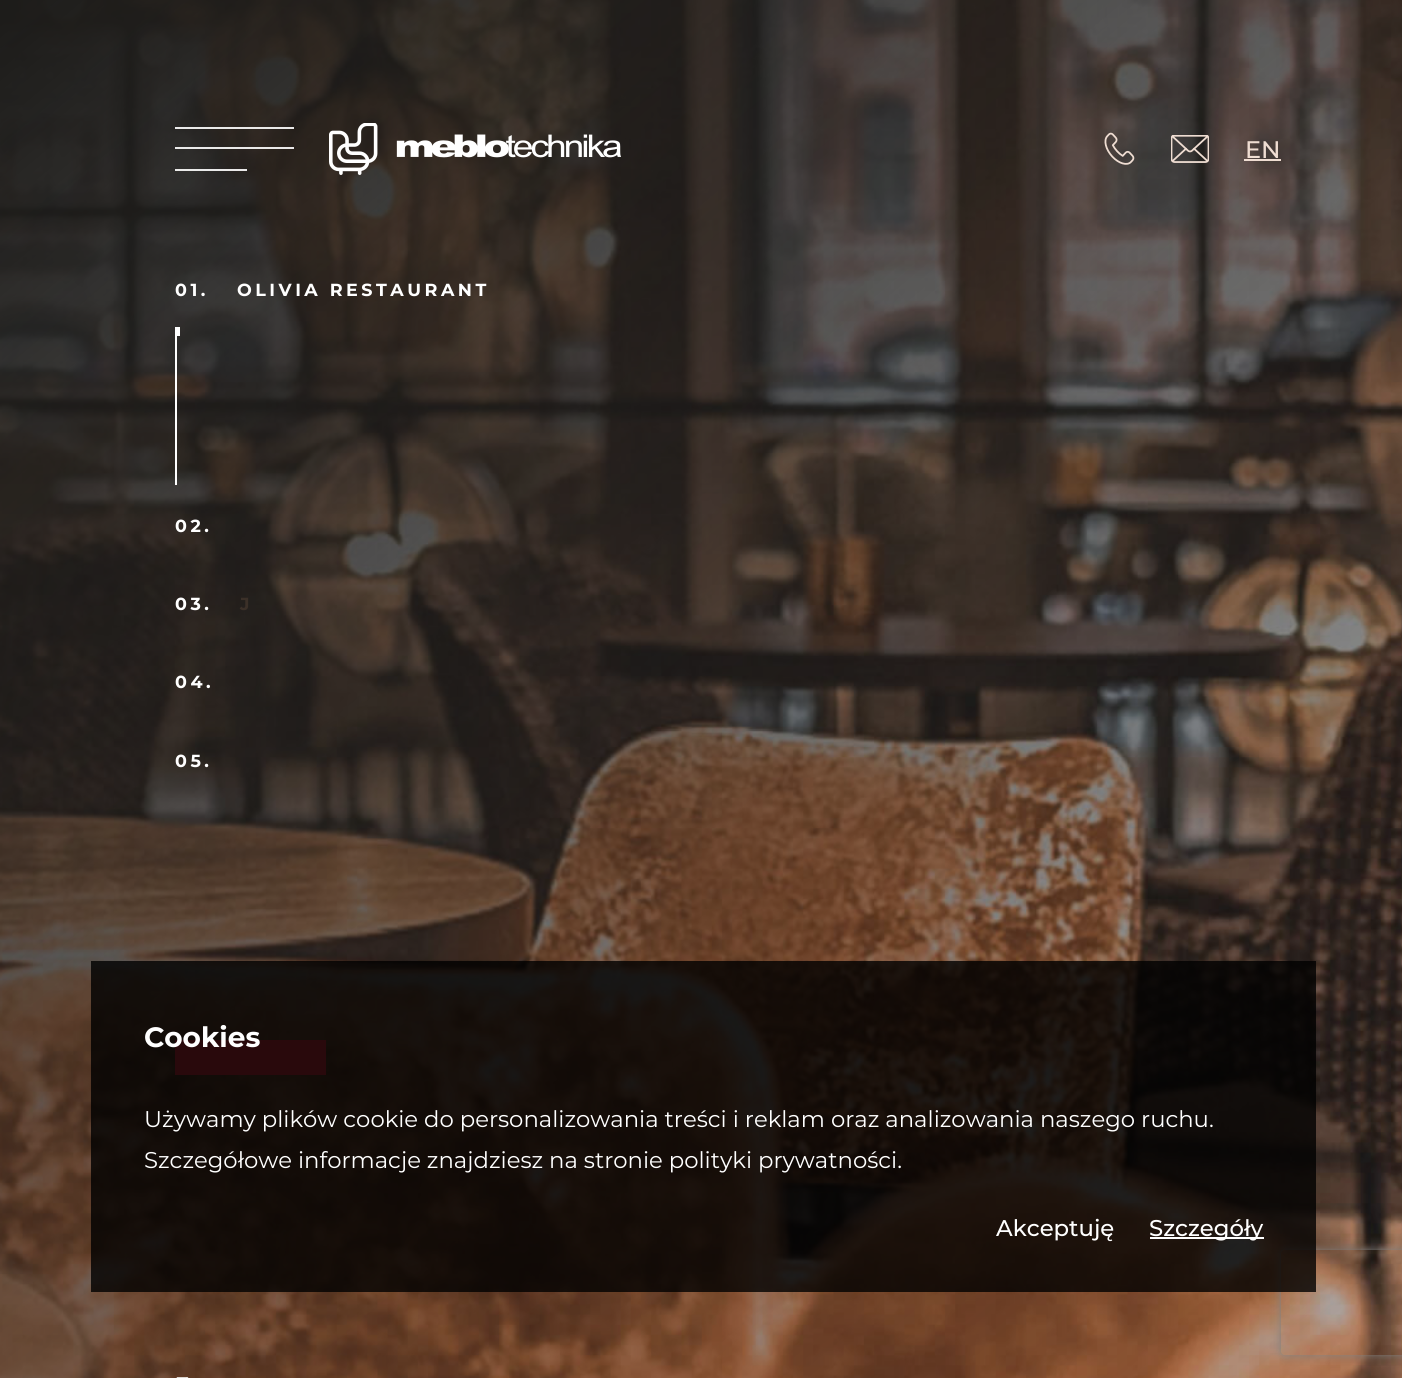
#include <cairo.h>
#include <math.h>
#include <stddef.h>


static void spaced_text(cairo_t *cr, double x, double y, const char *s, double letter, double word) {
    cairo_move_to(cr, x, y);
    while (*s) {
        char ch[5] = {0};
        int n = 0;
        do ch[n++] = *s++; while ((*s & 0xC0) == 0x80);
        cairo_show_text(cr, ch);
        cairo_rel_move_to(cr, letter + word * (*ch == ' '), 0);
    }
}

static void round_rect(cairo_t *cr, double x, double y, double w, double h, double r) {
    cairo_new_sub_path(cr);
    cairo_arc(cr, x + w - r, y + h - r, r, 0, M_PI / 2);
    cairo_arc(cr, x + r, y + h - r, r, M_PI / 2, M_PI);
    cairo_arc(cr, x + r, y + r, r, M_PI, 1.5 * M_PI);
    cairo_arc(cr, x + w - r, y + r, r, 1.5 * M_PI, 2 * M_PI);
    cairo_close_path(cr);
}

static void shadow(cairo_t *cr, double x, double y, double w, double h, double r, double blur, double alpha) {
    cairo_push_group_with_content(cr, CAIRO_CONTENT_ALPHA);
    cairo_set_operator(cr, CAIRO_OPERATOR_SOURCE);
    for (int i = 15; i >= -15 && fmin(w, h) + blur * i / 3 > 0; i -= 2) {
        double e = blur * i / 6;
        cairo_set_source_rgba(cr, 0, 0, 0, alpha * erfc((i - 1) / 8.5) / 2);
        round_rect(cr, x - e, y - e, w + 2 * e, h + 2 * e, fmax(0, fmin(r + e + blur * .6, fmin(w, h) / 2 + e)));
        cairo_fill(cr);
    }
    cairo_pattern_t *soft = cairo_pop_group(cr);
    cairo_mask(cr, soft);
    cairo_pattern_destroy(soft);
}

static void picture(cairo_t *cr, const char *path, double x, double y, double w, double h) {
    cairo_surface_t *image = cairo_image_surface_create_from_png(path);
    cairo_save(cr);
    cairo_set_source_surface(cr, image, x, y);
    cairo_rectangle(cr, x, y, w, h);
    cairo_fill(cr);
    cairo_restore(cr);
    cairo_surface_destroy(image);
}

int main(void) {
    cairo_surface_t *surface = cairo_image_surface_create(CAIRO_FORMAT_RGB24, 1402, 1378);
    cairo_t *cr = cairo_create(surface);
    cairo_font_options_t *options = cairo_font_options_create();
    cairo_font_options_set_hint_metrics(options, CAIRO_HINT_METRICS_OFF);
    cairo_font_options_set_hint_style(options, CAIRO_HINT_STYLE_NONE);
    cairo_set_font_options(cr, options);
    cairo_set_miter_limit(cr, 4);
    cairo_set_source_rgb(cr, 1, 1, 1);
    cairo_paint(cr);
    picture(cr, "img1.png", 0, 0, 1402, 1378);
    cairo_set_source_rgb(cr, 0.808, 0.176, 0.235);
    cairo_rectangle(cr, 175, 1040, 151, 35);
    cairo_fill(cr);
    picture(cr, "img2.png", 176, 1377, 13, 1);
    cairo_new_path(cr);
    cairo_move_to(cr, 175, 128);
    cairo_line_to(cr, 294, 128);
    cairo_move_to(cr, 175, 148);
    cairo_line_to(cr, 294, 148);
    cairo_move_to(cr, 175, 170);
    cairo_line_to(cr, 247, 170);
    cairo_set_source_rgb(cr, 1, 1, 1);
    cairo_set_line_width(cr, 1.8);
    cairo_stroke(cr);
    picture(cr, "img3.png", 329, 123, 292, 52);
    picture(cr, "img4.png", 1104, 132, 31, 33);
    picture(cr, "img5.png", 1171, 135, 38, 28);
    cairo_select_font_face(cr, "Montserrat Medium", CAIRO_FONT_SLANT_NORMAL, CAIRO_FONT_WEIGHT_NORMAL);
    cairo_set_font_size(cr, 24);
    cairo_set_source_rgb(cr, 0.937, 0.867, 0.824);
    cairo_move_to(cr, 1245, 158);
    cairo_show_text(cr, "EN");
    cairo_rectangle(cr, 1244, 159, 37, 2);
    cairo_fill(cr);
    cairo_select_font_face(cr, "Montserrat", CAIRO_FONT_SLANT_NORMAL, CAIRO_FONT_WEIGHT_BOLD);
    cairo_set_font_size(cr, 17.5);
    cairo_set_source_rgb(cr, 1, 1, 1);
    spaced_text(cr, 175, 296, "01.", 3.5, 0);
    spaced_text(cr, 237, 296, "OLIVIA RESTAURANT", 3.5, 0);
    cairo_rectangle(cr, 175, 336, 2, 149);
    cairo_fill(cr);
    cairo_rectangle(cr, 175, 327, 5, 9);
    cairo_fill(cr);
    spaced_text(cr, 175, 532, "02.", 3.5, 0);
    spaced_text(cr, 175, 610, "03.", 3.5, 0);
    cairo_set_source_rgb(cr, 0.231, 0.188, 0.157);
    spaced_text(cr, 240, 610, "J", 3.5, 0);
    cairo_set_source_rgb(cr, 1, 1, 1);
    spaced_text(cr, 175, 688, "04.", 3.5, 0);
    spaced_text(cr, 175, 767, "05.", 3.5, 0);
    cairo_save(cr);
    cairo_set_fill_rule(cr, CAIRO_FILL_RULE_EVEN_ODD);
    cairo_new_path(cr);
    cairo_move_to(cr, 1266, 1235);
    cairo_line_to(cr, 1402, 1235);
    cairo_line_to(cr, 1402, 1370);
    cairo_line_to(cr, 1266, 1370);
    cairo_close_path(cr);
    cairo_move_to(cr, 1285, 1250);
    cairo_line_to(cr, 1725, 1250);
    cairo_curve_to(cr, 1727, 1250, 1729, 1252, 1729, 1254);
    cairo_line_to(cr, 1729, 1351);
    cairo_curve_to(cr, 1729, 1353, 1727, 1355, 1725, 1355);
    cairo_line_to(cr, 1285, 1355);
    cairo_curve_to(cr, 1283, 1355, 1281, 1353, 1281, 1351);
    cairo_line_to(cr, 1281, 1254);
    cairo_curve_to(cr, 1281, 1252, 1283, 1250, 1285, 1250);
    cairo_close_path(cr);
    cairo_clip(cr);
    cairo_set_source_rgb(cr, 0.502, 0.502, 0.502);
    shadow(cr, 1281, 1250, 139, 105, 4, 4.5, 1);
    cairo_restore(cr);
    cairo_set_source_rgba(cr, 0, 0, 0, 0.8);
    cairo_rectangle(cr, 91, 961, 1225, 331);
    cairo_fill(cr);
    cairo_set_font_size(cr, 28);
    cairo_set_source_rgb(cr, 1, 1, 1);
    cairo_move_to(cr, 144, 1047);
    cairo_show_text(cr, "Cookies");
    cairo_select_font_face(cr, "Montserrat", CAIRO_FONT_SLANT_NORMAL, CAIRO_FONT_WEIGHT_NORMAL);
    cairo_set_font_size(cr, 22.75);
    cairo_move_to(cr, 144, 1127);
    cairo_show_text(cr, "Używamy plików cookie do personalizowania treści i reklam oraz analizowania naszego ruchu.");
    cairo_move_to(cr, 144, 1168);
    cairo_show_text(cr, "Szczegółowe informacje znajdziesz na stronie polityki prywatności.");
    cairo_select_font_face(cr, "Montserrat Medium", CAIRO_FONT_SLANT_NORMAL, CAIRO_FONT_WEIGHT_NORMAL);
    cairo_move_to(cr, 996, 1236);
    cairo_show_text(cr, "Akceptuję");
    cairo_rectangle(cr, 1150, 1237, 114, 2);
    cairo_fill(cr);
    cairo_move_to(cr, 1149, 1236);
    cairo_show_text(cr, "Szczegóły");
    cairo_surface_write_to_png(surface, "page.png");
    cairo_font_options_destroy(options);
    cairo_destroy(cr);
    cairo_surface_destroy(surface);
    return 0;
}
